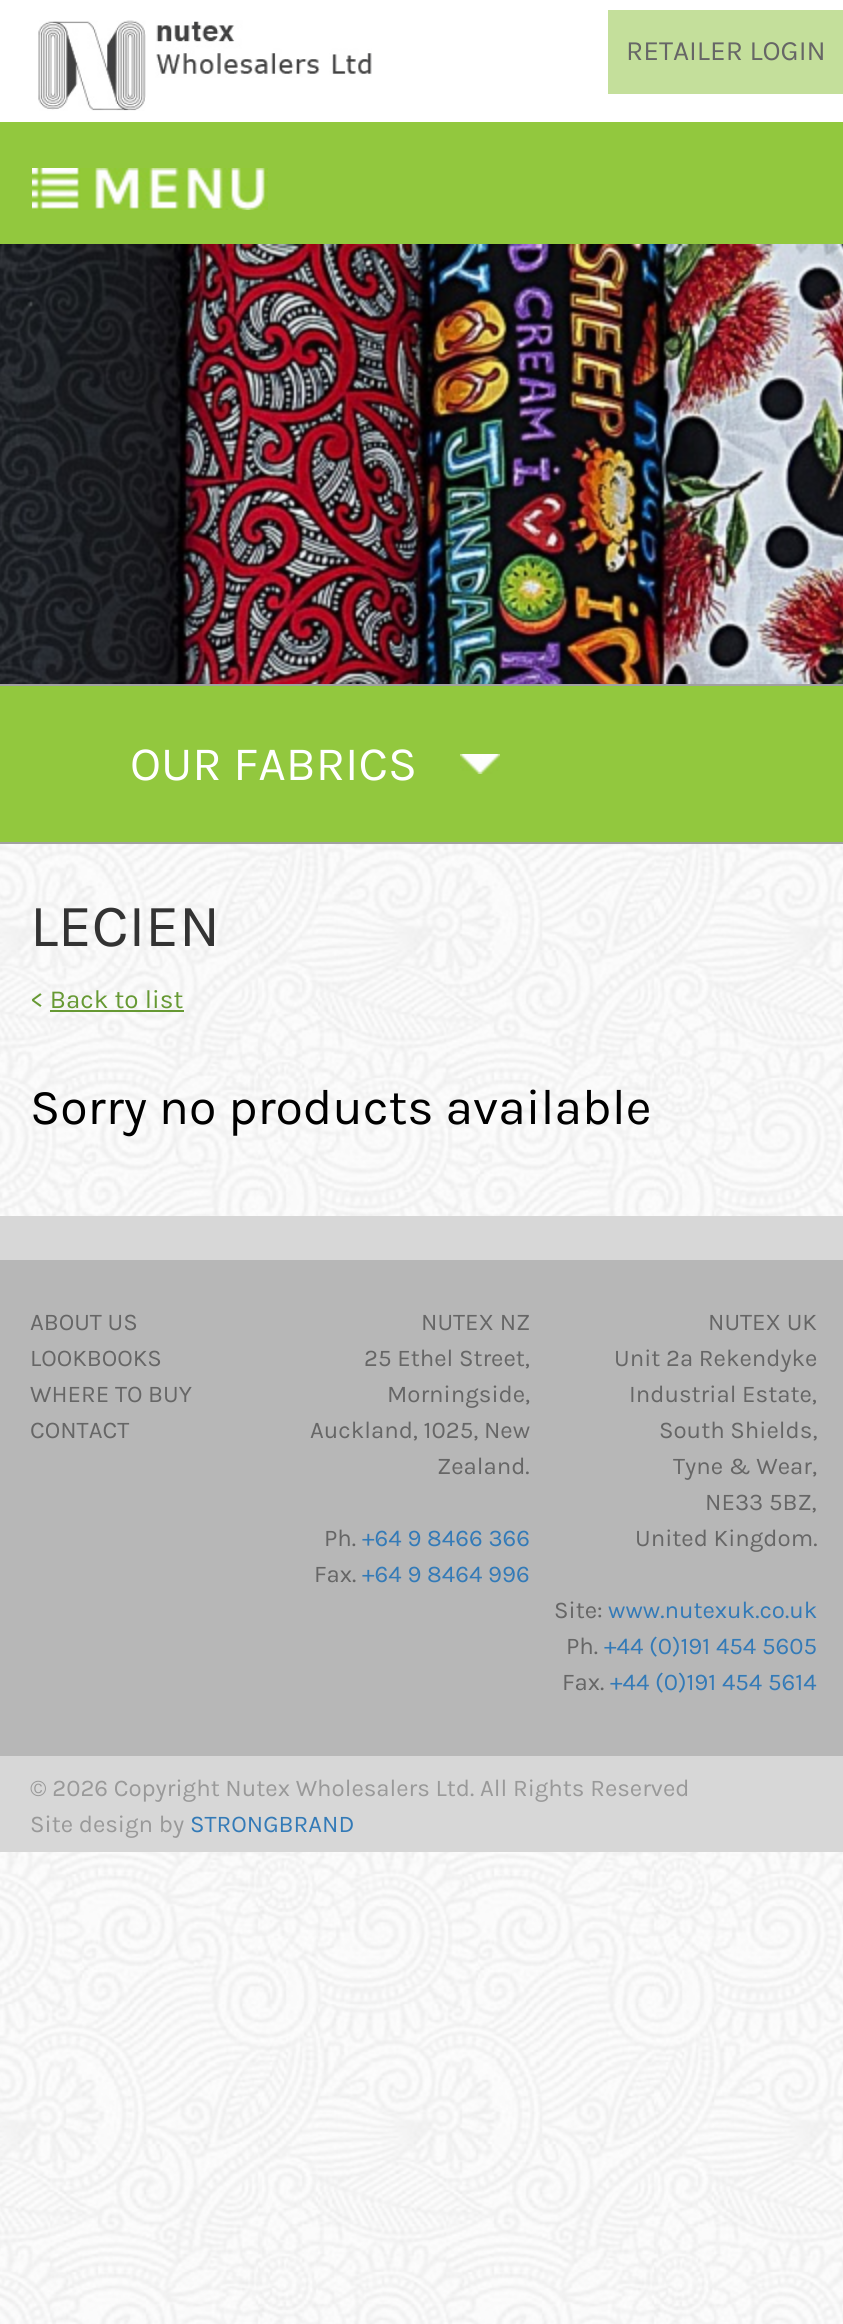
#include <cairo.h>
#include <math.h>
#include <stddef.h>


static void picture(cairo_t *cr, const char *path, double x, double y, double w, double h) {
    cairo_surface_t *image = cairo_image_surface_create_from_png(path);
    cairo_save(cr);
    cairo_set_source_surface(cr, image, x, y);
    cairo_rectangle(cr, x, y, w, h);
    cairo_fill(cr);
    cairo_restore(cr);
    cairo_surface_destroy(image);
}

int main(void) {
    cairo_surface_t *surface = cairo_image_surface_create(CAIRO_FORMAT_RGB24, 843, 2324);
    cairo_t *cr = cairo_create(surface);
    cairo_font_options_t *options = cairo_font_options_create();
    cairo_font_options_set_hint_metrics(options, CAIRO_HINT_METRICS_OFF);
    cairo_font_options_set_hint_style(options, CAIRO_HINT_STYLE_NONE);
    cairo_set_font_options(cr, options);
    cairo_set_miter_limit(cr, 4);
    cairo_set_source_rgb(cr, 1, 1, 1);
    cairo_paint(cr);
    picture(cr, "img1.png", 0, 844, 843, 1480);
    picture(cr, "img2.png", 38, 20, 334, 91);
    cairo_set_source_rgb(cr, 0.769, 0.875, 0.608);
    cairo_rectangle(cr, 608, 10, 235, 84);
    cairo_fill(cr);
    cairo_select_font_face(cr, "Karla", CAIRO_FONT_SLANT_NORMAL, CAIRO_FONT_WEIGHT_NORMAL);
    cairo_set_font_size(cr, 28);
    cairo_set_source_rgb(cr, 0.4, 0.4, 0.4);
    cairo_move_to(cr, 626, 60);
    cairo_show_text(cr, "RETAILER LOGIN");
    cairo_set_source_rgb(cr, 0.573, 0.784, 0.243);
    cairo_rectangle(cr, 0, 122, 843, 122);
    cairo_fill(cr);
    picture(cr, "img3.png", 32, 168, 236, 42);
    picture(cr, "img4.png", 0, 244, 843, 440);
    cairo_rectangle(cr, 0, 686, 843, 156);
    cairo_fill(cr);
    cairo_set_source_rgb(cr, 0.631, 0.631, 0.631);
    cairo_rectangle(cr, 0, 684, 843, 2);
    cairo_fill(cr);
    cairo_rectangle(cr, 0, 842, 843, 2);
    cairo_fill(cr);
    picture(cr, "img5.png", 460, 754, 40, 20);
    cairo_set_font_size(cr, 48);
    cairo_set_source_rgb(cr, 1, 1, 1);
    cairo_move_to(cr, 130, 780);
    cairo_show_text(cr, "OUR FABRICS");
    cairo_set_font_size(cr, 60);
    cairo_set_source_rgb(cr, 0.2, 0.2, 0.2);
    cairo_move_to(cr, 30, 946);
    cairo_show_text(cr, "LECIEN");
    cairo_set_font_size(cr, 26);
    cairo_set_source_rgb(cr, 0.4, 0.6, 0.2);
    cairo_move_to(cr, 30, 1008);
    cairo_show_text(cr, "< Back to list");
    cairo_rectangle(cr, 50, 1010, 134, 2);
    cairo_fill(cr);
    cairo_set_font_size(cr, 50);
    cairo_set_source_rgb(cr, 0, 0, 0);
    cairo_move_to(cr, 30, 1124);
    cairo_show_text(cr, "Sorry no products available");
    cairo_set_source_rgb(cr, 0.843, 0.843, 0.843);
    cairo_rectangle(cr, 0, 1216, 843, 636);
    cairo_fill(cr);
    cairo_set_source_rgb(cr, 0.718, 0.718, 0.718);
    cairo_rectangle(cr, 0, 1260, 843, 496);
    cairo_fill(cr);
    cairo_set_font_size(cr, 24);
    cairo_set_source_rgb(cr, 0.4, 0.4, 0.4);
    cairo_move_to(cr, 30, 1330);
    cairo_show_text(cr, "ABOUT US");
    cairo_move_to(cr, 30, 1366);
    cairo_show_text(cr, "LOOKBOOKS");
    cairo_move_to(cr, 30, 1402);
    cairo_show_text(cr, "WHERE TO BUY");
    cairo_move_to(cr, 30, 1438);
    cairo_show_text(cr, "CONTACT");
    cairo_move_to(cr, 421, 1330);
    cairo_show_text(cr, "NUTEX NZ");
    cairo_move_to(cr, 364, 1366);
    cairo_show_text(cr, "25 Ethel Street,");
    cairo_move_to(cr, 387, 1402);
    cairo_show_text(cr, "Morningside,");
    cairo_move_to(cr, 310, 1438);
    cairo_show_text(cr, "Auckland, 1025, New");
    cairo_move_to(cr, 437, 1474);
    cairo_show_text(cr, "Zealand.");
    cairo_move_to(cr, 324, 1546);
    cairo_show_text(cr, "Ph.");
    cairo_set_source_rgb(cr, 0.2, 0.478, 0.718);
    cairo_move_to(cr, 362, 1546);
    cairo_show_text(cr, "+64 9 8466 366");
    cairo_set_source_rgb(cr, 0.4, 0.4, 0.4);
    cairo_move_to(cr, 314, 1582);
    cairo_show_text(cr, "Fax.");
    cairo_set_source_rgb(cr, 0.2, 0.478, 0.718);
    cairo_move_to(cr, 362, 1582);
    cairo_show_text(cr, "+64 9 8464 996");
    cairo_set_source_rgb(cr, 0.4, 0.4, 0.4);
    cairo_move_to(cr, 708, 1330);
    cairo_show_text(cr, "NUTEX UK");
    cairo_move_to(cr, 614, 1366);
    cairo_show_text(cr, "Unit 2a Rekendyke");
    cairo_move_to(cr, 629, 1402);
    cairo_show_text(cr, "Industrial Estate,");
    cairo_move_to(cr, 659, 1438);
    cairo_show_text(cr, "South Shields,");
    cairo_move_to(cr, 673, 1474);
    cairo_show_text(cr, "Tyne & Wear,");
    cairo_move_to(cr, 705, 1510);
    cairo_show_text(cr, "NE33 5BZ,");
    cairo_move_to(cr, 635, 1546);
    cairo_show_text(cr, "United Kingdom.");
    cairo_move_to(cr, 554, 1618);
    cairo_show_text(cr, "Site:");
    cairo_set_source_rgb(cr, 0.2, 0.478, 0.718);
    cairo_move_to(cr, 608, 1618);
    cairo_show_text(cr, "www.nutexuk.co.uk");
    cairo_set_source_rgb(cr, 0.4, 0.4, 0.4);
    cairo_move_to(cr, 566, 1654);
    cairo_show_text(cr, "Ph.");
    cairo_set_source_rgb(cr, 0.2, 0.478, 0.718);
    cairo_move_to(cr, 604, 1654);
    cairo_show_text(cr, "+44 (0)191 454 5605");
    cairo_set_source_rgb(cr, 0.4, 0.4, 0.4);
    cairo_move_to(cr, 562, 1690);
    cairo_show_text(cr, "Fax.");
    cairo_set_source_rgb(cr, 0.2, 0.478, 0.718);
    cairo_move_to(cr, 610, 1690);
    cairo_show_text(cr, "+44 (0)191 454 5614");
    cairo_set_source_rgb(cr, 0.6, 0.6, 0.6);
    cairo_move_to(cr, 30, 1796);
    cairo_show_text(cr, "© 2026 Copyright Nutex Wholesalers Ltd. All Rights Reserved");
    cairo_move_to(cr, 30, 1832);
    cairo_show_text(cr, "Site design by");
    cairo_set_source_rgb(cr, 0.2, 0.478, 0.718);
    cairo_move_to(cr, 190, 1832);
    cairo_show_text(cr, "STRONGBRAND");
    cairo_surface_write_to_png(surface, "page.png");
    cairo_font_options_destroy(options);
    cairo_destroy(cr);
    cairo_surface_destroy(surface);
    return 0;
}
